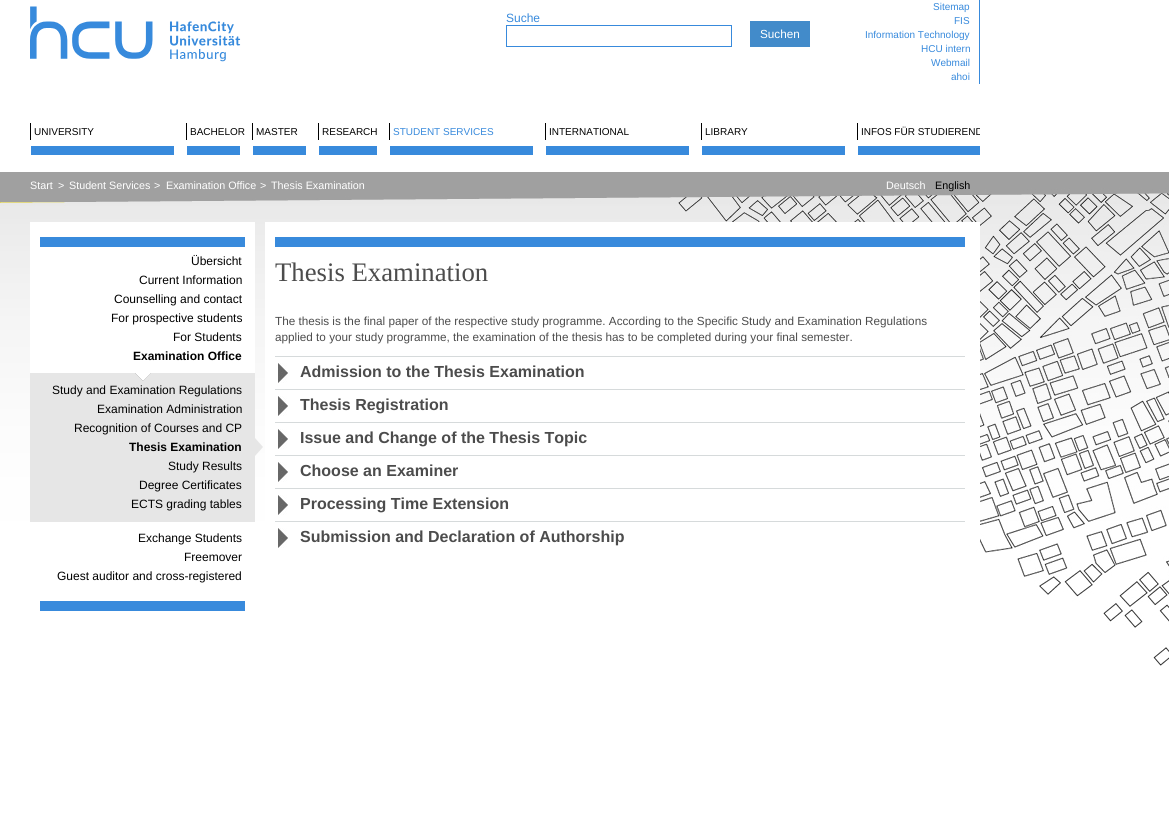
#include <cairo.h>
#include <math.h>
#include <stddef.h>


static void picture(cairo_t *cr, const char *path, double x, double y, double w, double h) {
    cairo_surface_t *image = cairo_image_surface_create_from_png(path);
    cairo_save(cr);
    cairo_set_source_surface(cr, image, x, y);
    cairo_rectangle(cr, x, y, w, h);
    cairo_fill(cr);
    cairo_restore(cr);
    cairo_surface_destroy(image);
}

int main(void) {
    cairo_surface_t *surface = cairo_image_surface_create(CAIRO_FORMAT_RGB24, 1169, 821);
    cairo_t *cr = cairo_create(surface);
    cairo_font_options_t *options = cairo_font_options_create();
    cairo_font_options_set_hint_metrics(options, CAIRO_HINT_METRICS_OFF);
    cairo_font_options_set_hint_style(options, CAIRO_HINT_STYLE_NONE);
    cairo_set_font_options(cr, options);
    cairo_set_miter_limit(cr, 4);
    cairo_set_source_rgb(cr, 1, 1, 1);
    cairo_paint(cr);
    picture(cr, "img1.png", 30, 6, 211, 56);
    cairo_select_font_face(cr, "Liberation Sans", CAIRO_FONT_SLANT_NORMAL, CAIRO_FONT_WEIGHT_NORMAL);
    cairo_set_font_size(cr, 12);
    cairo_set_source_rgb(cr, 0.22, 0.541, 0.863);
    cairo_move_to(cr, 506, 22);
    cairo_show_text(cr, "Suche");
    cairo_rectangle(cr, 506.5, 25.5, 225, 21);
    cairo_set_line_width(cr, 1);
    cairo_stroke(cr);
    cairo_set_source_rgb(cr, 0.259, 0.545, 0.792);
    cairo_rectangle(cr, 750, 21, 60, 26);
    cairo_fill(cr);
    cairo_set_font_size(cr, 11.73);
    cairo_set_source_rgb(cr, 1, 1, 1);
    cairo_move_to(cr, 760, 38);
    cairo_show_text(cr, "Suchen");
    cairo_set_source_rgb(cr, 0.22, 0.541, 0.863);
    cairo_rectangle(cr, 979, 0, 1, 84);
    cairo_fill(cr);
    cairo_set_font_size(cr, 10);
    cairo_move_to(cr, 933, 10);
    cairo_show_text(cr, "Sitemap");
    cairo_move_to(cr, 954, 24);
    cairo_show_text(cr, "FIS");
    cairo_move_to(cr, 865, 38);
    cairo_show_text(cr, "Information Technology");
    cairo_move_to(cr, 921, 52);
    cairo_show_text(cr, "HCU intern");
    cairo_move_to(cr, 931, 66);
    cairo_show_text(cr, "Webmail");
    cairo_move_to(cr, 951, 80);
    cairo_show_text(cr, "ahoi");
    cairo_rectangle(cr, 31, 146, 143, 9);
    cairo_fill(cr);
    cairo_set_source_rgb(cr, 0, 0, 0);
    cairo_rectangle(cr, 30, 123, 1, 17);
    cairo_fill(cr);
    cairo_move_to(cr, 34, 135);
    cairo_show_text(cr, "UNIVERSITY");
    cairo_set_source_rgb(cr, 0.22, 0.541, 0.863);
    cairo_rectangle(cr, 187, 146, 53, 9);
    cairo_fill(cr);
    cairo_set_source_rgb(cr, 0, 0, 0);
    cairo_rectangle(cr, 186, 123, 1, 17);
    cairo_fill(cr);
    cairo_move_to(cr, 190, 135);
    cairo_show_text(cr, "BACHELOR");
    cairo_set_source_rgb(cr, 0.22, 0.541, 0.863);
    cairo_rectangle(cr, 253, 146, 53, 9);
    cairo_fill(cr);
    cairo_set_source_rgb(cr, 0, 0, 0);
    cairo_rectangle(cr, 252, 123, 1, 17);
    cairo_fill(cr);
    cairo_move_to(cr, 256, 135);
    cairo_show_text(cr, "MASTER");
    cairo_set_source_rgb(cr, 0.22, 0.541, 0.863);
    cairo_rectangle(cr, 319, 146, 58, 9);
    cairo_fill(cr);
    cairo_set_source_rgb(cr, 0, 0, 0);
    cairo_rectangle(cr, 318, 123, 1, 17);
    cairo_fill(cr);
    cairo_move_to(cr, 322, 135);
    cairo_show_text(cr, "RESEARCH");
    cairo_set_source_rgb(cr, 0.22, 0.541, 0.863);
    cairo_rectangle(cr, 390, 146, 143, 9);
    cairo_fill(cr);
    cairo_set_source_rgb(cr, 0, 0, 0);
    cairo_rectangle(cr, 389, 123, 1, 17);
    cairo_fill(cr);
    cairo_set_source_rgb(cr, 0.22, 0.541, 0.863);
    cairo_move_to(cr, 393, 135);
    cairo_show_text(cr, "STUDENT SERVICES");
    cairo_rectangle(cr, 546, 146, 143, 9);
    cairo_fill(cr);
    cairo_set_source_rgb(cr, 0, 0, 0);
    cairo_rectangle(cr, 545, 123, 1, 17);
    cairo_fill(cr);
    cairo_move_to(cr, 549, 135);
    cairo_show_text(cr, "INTERNATIONAL");
    cairo_set_source_rgb(cr, 0.22, 0.541, 0.863);
    cairo_rectangle(cr, 702, 146, 143, 9);
    cairo_fill(cr);
    cairo_set_source_rgb(cr, 0, 0, 0);
    cairo_rectangle(cr, 701, 123, 1, 17);
    cairo_fill(cr);
    cairo_move_to(cr, 705, 135);
    cairo_show_text(cr, "LIBRARY");
    cairo_set_source_rgb(cr, 0.22, 0.541, 0.863);
    cairo_rectangle(cr, 858, 146, 122, 9);
    cairo_fill(cr);
    cairo_set_source_rgb(cr, 0, 0, 0);
    cairo_rectangle(cr, 857, 123, 1, 17);
    cairo_fill(cr);
    cairo_save(cr);
    cairo_rectangle(cr, 858, 123, 122, 17);
    cairo_clip(cr);
    cairo_move_to(cr, 861, 135);
    cairo_show_text(cr, "INFOS FÜR STUDIEREND");
    cairo_restore(cr);
    picture(cr, "img2.png", 0, 172, 1169, 30);
    cairo_set_font_size(cr, 10.75);
    cairo_set_source_rgb(cr, 1, 1, 1);
    cairo_move_to(cr, 30, 189);
    cairo_show_text(cr, "Start");
    cairo_move_to(cr, 58, 189);
    cairo_show_text(cr, ">");
    cairo_move_to(cr, 69, 189);
    cairo_show_text(cr, "Student Services");
    cairo_move_to(cr, 154, 189);
    cairo_show_text(cr, ">");
    cairo_move_to(cr, 166, 189);
    cairo_show_text(cr, "Examination Office");
    cairo_move_to(cr, 260, 189);
    cairo_show_text(cr, ">");
    cairo_move_to(cr, 271, 189);
    cairo_show_text(cr, "Thesis Examination");
    cairo_move_to(cr, 886, 189);
    cairo_show_text(cr, "Deutsch");
    cairo_set_source_rgb(cr, 0, 0, 0);
    cairo_move_to(cr, 935, 189);
    cairo_show_text(cr, "English");
    picture(cr, "img3.png", 0, 202, 1169, 464);
    cairo_set_source_rgb(cr, 1, 1, 1);
    cairo_rectangle(cr, 30, 222, 225, 231);
    cairo_fill(cr);
    cairo_set_source_rgb(cr, 0.22, 0.541, 0.863);
    cairo_rectangle(cr, 40, 237, 205, 10);
    cairo_fill(cr);
    cairo_set_font_size(cr, 12);
    cairo_set_source_rgb(cr, 0, 0, 0);
    cairo_move_to(cr, 191, 265);
    cairo_show_text(cr, "Übersicht");
    cairo_move_to(cr, 139, 284);
    cairo_show_text(cr, "Current Information");
    cairo_move_to(cr, 114, 303);
    cairo_show_text(cr, "Counselling and contact");
    cairo_move_to(cr, 111, 322);
    cairo_show_text(cr, "For prospective students");
    cairo_move_to(cr, 173, 341);
    cairo_show_text(cr, "For Students");
    cairo_select_font_face(cr, "Liberation Sans", CAIRO_FONT_SLANT_NORMAL, CAIRO_FONT_WEIGHT_BOLD);
    cairo_move_to(cr, 133, 360);
    cairo_show_text(cr, "Examination Office");
    cairo_set_source_rgb(cr, 0.902, 0.902, 0.902);
    cairo_rectangle(cr, 30, 381, 225, 141);
    cairo_fill(cr);
    picture(cr, "img4.png", 30, 366, 225, 15);
    cairo_select_font_face(cr, "Liberation Sans", CAIRO_FONT_SLANT_NORMAL, CAIRO_FONT_WEIGHT_NORMAL);
    cairo_set_source_rgb(cr, 0, 0, 0);
    cairo_move_to(cr, 52, 394);
    cairo_show_text(cr, "Study and Examination Regulations");
    cairo_move_to(cr, 97, 413);
    cairo_show_text(cr, "Examination Administration");
    cairo_move_to(cr, 74, 432);
    cairo_show_text(cr, "Recognition of Courses and CP");
    cairo_select_font_face(cr, "Liberation Sans", CAIRO_FONT_SLANT_NORMAL, CAIRO_FONT_WEIGHT_BOLD);
    cairo_move_to(cr, 129, 451);
    cairo_show_text(cr, "Thesis Examination");
    cairo_set_source_rgb(cr, 0.902, 0.902, 0.902);
    cairo_new_path(cr);
    cairo_move_to(cr, 255, 456);
    cairo_line_to(cr, 255, 438);
    cairo_line_to(cr, 263, 447);
    cairo_close_path(cr);
    cairo_fill(cr);
    cairo_select_font_face(cr, "Liberation Sans", CAIRO_FONT_SLANT_NORMAL, CAIRO_FONT_WEIGHT_NORMAL);
    cairo_set_source_rgb(cr, 0, 0, 0);
    cairo_move_to(cr, 168, 470);
    cairo_show_text(cr, "Study Results");
    cairo_move_to(cr, 139, 489);
    cairo_show_text(cr, "Degree Certificates");
    cairo_move_to(cr, 131, 508);
    cairo_show_text(cr, "ECTS grading tables");
    cairo_move_to(cr, 138, 542);
    cairo_show_text(cr, "Exchange Students");
    cairo_move_to(cr, 184, 561);
    cairo_show_text(cr, "Freemover");
    cairo_move_to(cr, 57, 580);
    cairo_show_text(cr, "Guest auditor and cross-registered");
    cairo_set_source_rgb(cr, 0.22, 0.541, 0.863);
    cairo_rectangle(cr, 40, 601, 205, 10);
    cairo_fill(cr);
    cairo_set_source_rgb(cr, 1, 1, 1);
    cairo_rectangle(cr, 265, 222, 715, 323);
    cairo_fill(cr);
    cairo_set_source_rgb(cr, 0.22, 0.541, 0.863);
    cairo_rectangle(cr, 275, 237, 690, 10);
    cairo_fill(cr);
    cairo_select_font_face(cr, "Liberation Serif", CAIRO_FONT_SLANT_NORMAL, CAIRO_FONT_WEIGHT_NORMAL);
    cairo_set_font_size(cr, 26.75);
    cairo_set_source_rgb(cr, 0.298, 0.298, 0.298);
    cairo_move_to(cr, 275, 281);
    cairo_show_text(cr, "Thesis Examination");
    cairo_select_font_face(cr, "Liberation Sans", CAIRO_FONT_SLANT_NORMAL, CAIRO_FONT_WEIGHT_NORMAL);
    cairo_set_font_size(cr, 11.73);
    cairo_move_to(cr, 275, 325);
    cairo_show_text(cr, "The thesis is the final paper of the respective study programme. According to the Specific Study and Examination Regulations");
    cairo_move_to(cr, 275, 341);
    cairo_show_text(cr, "applied to your study programme, the examination of the thesis has to be completed during your final semester.");
    cairo_set_source_rgb(cr, 0.839, 0.855, 0.859);
    cairo_rectangle(cr, 275, 356, 690, 1);
    cairo_fill(cr);
    picture(cr, "img5.png", 278, 363, 10, 20);
    cairo_select_font_face(cr, "Liberation Sans", CAIRO_FONT_SLANT_NORMAL, CAIRO_FONT_WEIGHT_BOLD);
    cairo_set_font_size(cr, 16);
    cairo_set_source_rgb(cr, 0.298, 0.298, 0.298);
    cairo_move_to(cr, 300, 377);
    cairo_show_text(cr, "Admission to the Thesis Examination");
    cairo_set_source_rgb(cr, 0.839, 0.855, 0.859);
    cairo_rectangle(cr, 275, 389, 690, 1);
    cairo_fill(cr);
    picture(cr, "img5.png", 278, 396, 10, 20);
    cairo_set_source_rgb(cr, 0.298, 0.298, 0.298);
    cairo_move_to(cr, 300, 410);
    cairo_show_text(cr, "Thesis Registration");
    cairo_set_source_rgb(cr, 0.839, 0.855, 0.859);
    cairo_rectangle(cr, 275, 422, 690, 1);
    cairo_fill(cr);
    picture(cr, "img5.png", 278, 429, 10, 20);
    cairo_set_source_rgb(cr, 0.298, 0.298, 0.298);
    cairo_move_to(cr, 300, 443);
    cairo_show_text(cr, "Issue and Change of the Thesis Topic");
    cairo_set_source_rgb(cr, 0.839, 0.855, 0.859);
    cairo_rectangle(cr, 275, 455, 690, 1);
    cairo_fill(cr);
    picture(cr, "img5.png", 278, 462, 10, 20);
    cairo_set_source_rgb(cr, 0.298, 0.298, 0.298);
    cairo_move_to(cr, 300, 476);
    cairo_show_text(cr, "Choose an Examiner");
    cairo_set_source_rgb(cr, 0.839, 0.855, 0.859);
    cairo_rectangle(cr, 275, 488, 690, 1);
    cairo_fill(cr);
    picture(cr, "img5.png", 278, 495, 10, 20);
    cairo_set_source_rgb(cr, 0.298, 0.298, 0.298);
    cairo_move_to(cr, 300, 509);
    cairo_show_text(cr, "Processing Time Extension");
    cairo_set_source_rgb(cr, 0.839, 0.855, 0.859);
    cairo_rectangle(cr, 275, 521, 690, 1);
    cairo_fill(cr);
    picture(cr, "img5.png", 278, 528, 10, 20);
    cairo_set_source_rgb(cr, 0.298, 0.298, 0.298);
    cairo_move_to(cr, 300, 542);
    cairo_show_text(cr, "Submission and Declaration of Authorship");
    cairo_surface_write_to_png(surface, "page.png");
    cairo_font_options_destroy(options);
    cairo_destroy(cr);
    cairo_surface_destroy(surface);
    return 0;
}
